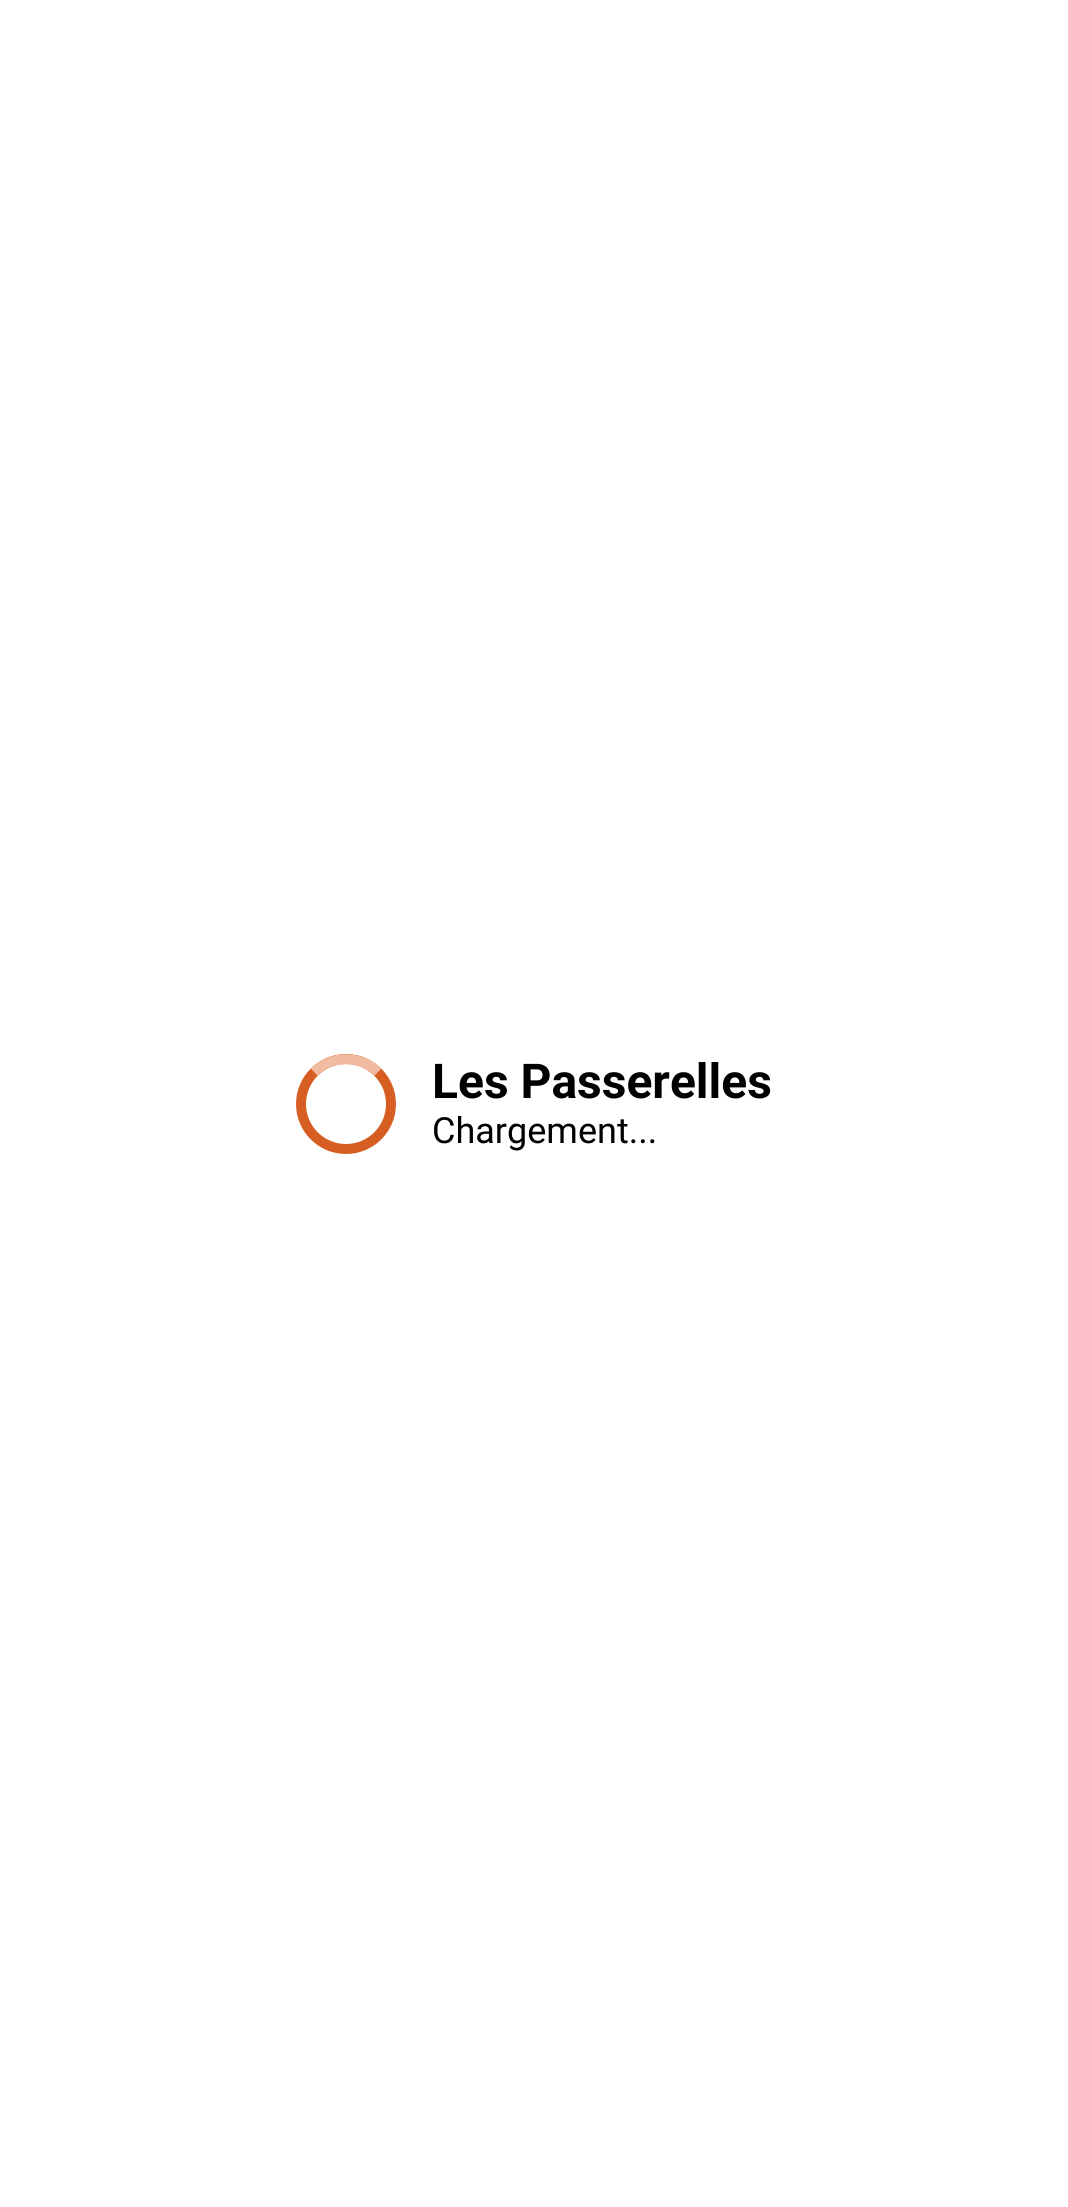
#include <cairo.h>
#include <math.h>
#include <stddef.h>


int main(void) {
    cairo_surface_t *surface = cairo_image_surface_create(CAIRO_FORMAT_RGB24, 1068, 2207);
    cairo_t *cr = cairo_create(surface);
    cairo_font_options_t *options = cairo_font_options_create();
    cairo_font_options_set_hint_metrics(options, CAIRO_HINT_METRICS_OFF);
    cairo_font_options_set_hint_style(options, CAIRO_HINT_STYLE_NONE);
    cairo_set_font_options(cr, options);
    cairo_set_miter_limit(cr, 4);
    cairo_set_source_rgb(cr, 1, 1, 1);
    cairo_paint(cr);
    cairo_arc(cr, 346, 1104, 45, 0, 2 * M_PI);
    cairo_set_source_rgb(cr, 0.839, 0.369, 0.133);
    cairo_set_line_width(cr, 10);
    cairo_stroke(cr);
    cairo_new_path(cr);
    cairo_move_to(cr, 314, 1072);
    cairo_curve_to(cr, 331.5, 1055, 360.5, 1055, 378, 1072);
    cairo_set_source_rgb(cr, 0.941, 0.733, 0.631);
    cairo_stroke(cr);
    cairo_select_font_face(cr, "Roboto", CAIRO_FONT_SLANT_NORMAL, CAIRO_FONT_WEIGHT_BOLD);
    cairo_set_font_size(cr, 48);
    cairo_set_source_rgb(cr, 0, 0, 0);
    cairo_move_to(cr, 432, 1098);
    cairo_show_text(cr, "Les Passerelles");
    cairo_select_font_face(cr, "Roboto", CAIRO_FONT_SLANT_NORMAL, CAIRO_FONT_WEIGHT_NORMAL);
    cairo_set_font_size(cr, 36);
    cairo_move_to(cr, 432, 1143);
    cairo_show_text(cr, "Chargement...");
    cairo_surface_write_to_png(surface, "page.png");
    cairo_font_options_destroy(options);
    cairo_destroy(cr);
    cairo_surface_destroy(surface);
    return 0;
}
